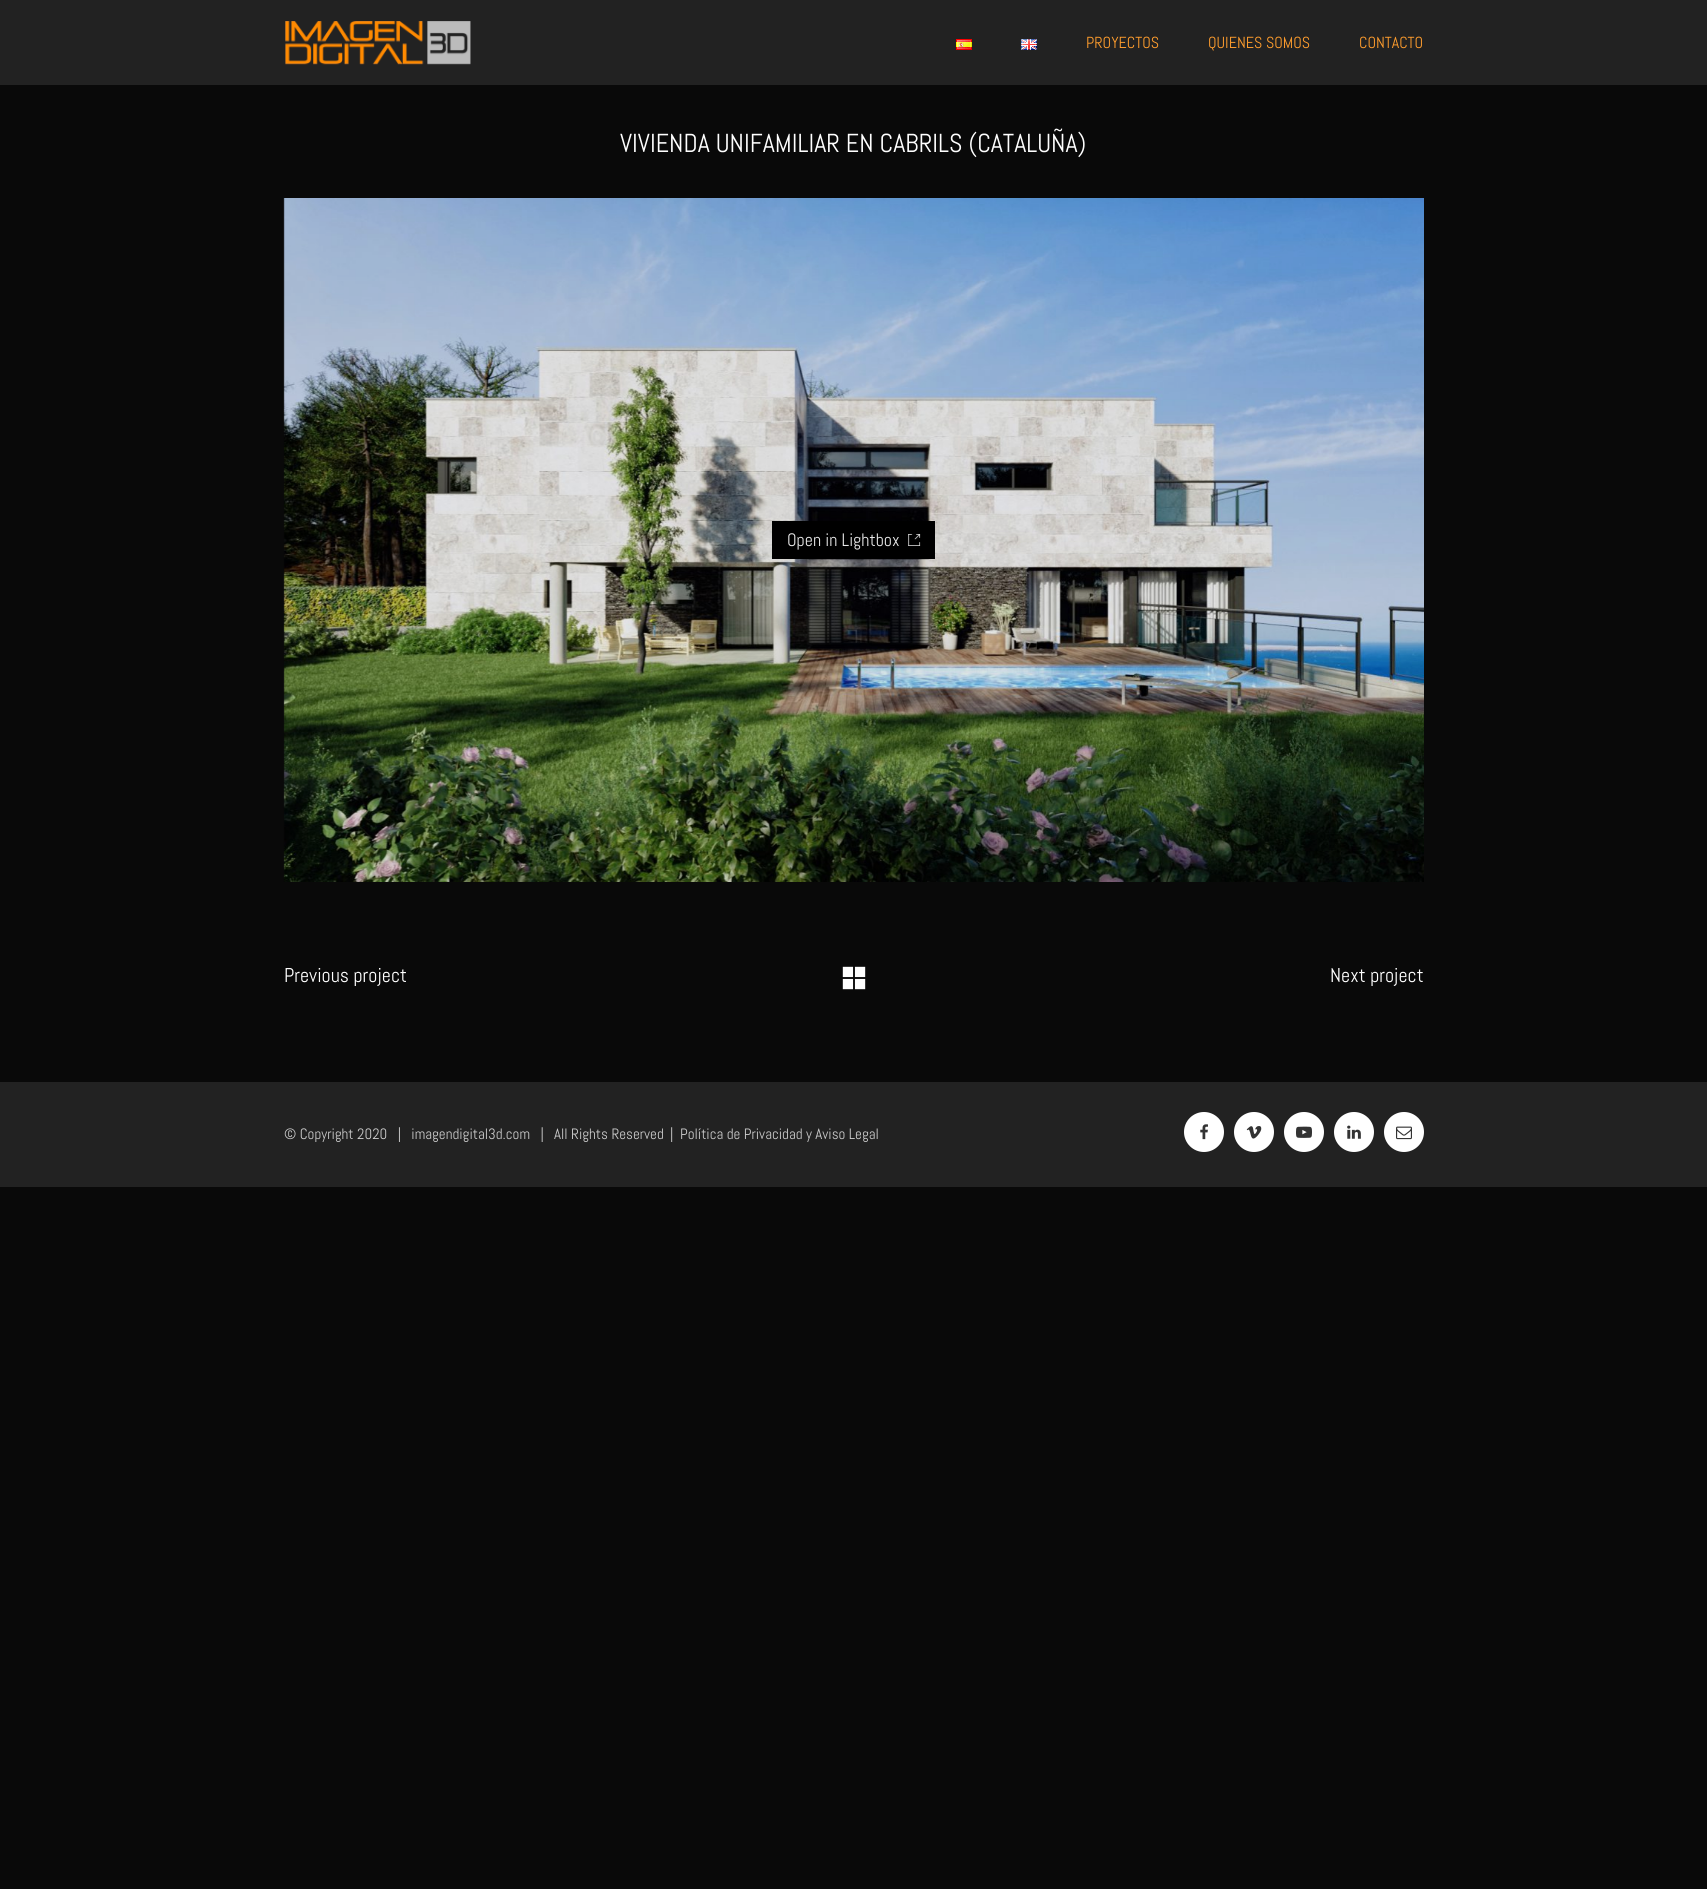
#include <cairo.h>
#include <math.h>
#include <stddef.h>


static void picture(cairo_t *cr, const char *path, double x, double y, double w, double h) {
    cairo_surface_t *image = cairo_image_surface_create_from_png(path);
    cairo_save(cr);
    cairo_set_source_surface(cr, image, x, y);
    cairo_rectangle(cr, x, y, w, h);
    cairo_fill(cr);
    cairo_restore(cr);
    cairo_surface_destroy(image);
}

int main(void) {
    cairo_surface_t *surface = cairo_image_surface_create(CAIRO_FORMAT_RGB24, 1707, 1889);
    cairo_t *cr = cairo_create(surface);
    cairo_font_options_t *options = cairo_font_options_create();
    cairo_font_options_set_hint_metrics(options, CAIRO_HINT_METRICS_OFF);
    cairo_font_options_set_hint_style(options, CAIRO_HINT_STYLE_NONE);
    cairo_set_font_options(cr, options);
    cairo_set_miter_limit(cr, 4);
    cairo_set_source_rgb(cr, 0.039, 0.039, 0.039);
    cairo_paint(cr);
    cairo_set_source_rgb(cr, 0.133, 0.133, 0.133);
    cairo_rectangle(cr, 0, 0, 1707, 85);
    cairo_fill(cr);
    picture(cr, "img1.png", 285, 21, 186, 44);
    picture(cr, "img2.png", 956, 39, 16, 11);
    picture(cr, "img3.png", 1021, 39, 16, 11);
    cairo_select_font_face(cr, "Abel", CAIRO_FONT_SLANT_NORMAL, CAIRO_FONT_WEIGHT_NORMAL);
    cairo_set_font_size(cr, 16);
    cairo_set_source_rgb(cr, 1, 0.616, 0.176);
    cairo_move_to(cr, 1086, 48);
    cairo_show_text(cr, "PROYECTOS");
    cairo_move_to(cr, 1208, 48);
    cairo_show_text(cr, "QUIENES SOMOS");
    cairo_move_to(cr, 1359, 48);
    cairo_show_text(cr, "CONTACTO");
    cairo_set_font_size(cr, 26);
    cairo_set_source_rgb(cr, 1, 1, 1);
    cairo_move_to(cr, 620, 152);
    cairo_show_text(cr, "VIVIENDA UNIFAMILIAR EN CABRILS (CATALUÑA)");
    picture(cr, "img4.png", 283, 198, 1141, 684);
    cairo_set_source_rgb(cr, 0, 0, 0);
    cairo_rectangle(cr, 772, 521, 163, 38);
    cairo_fill(cr);
    cairo_set_font_size(cr, 18);
    cairo_set_source_rgb(cr, 0.902, 0.902, 0.902);
    cairo_move_to(cr, 787, 546);
    cairo_show_text(cr, "Open in Lightbox");
    picture(cr, "img5.png", 908, 534, 13, 12);
    cairo_set_font_size(cr, 20);
    cairo_set_source_rgb(cr, 1, 1, 1);
    cairo_move_to(cr, 284, 982);
    cairo_show_text(cr, "Previous project");
    picture(cr, "img6.png", 842, 966, 24, 24);
    cairo_move_to(cr, 1330, 982);
    cairo_show_text(cr, "Next project");
    cairo_set_source_rgb(cr, 0.133, 0.133, 0.133);
    cairo_rectangle(cr, 0, 1082, 1707, 105);
    cairo_fill(cr);
    cairo_set_font_size(cr, 15);
    cairo_set_source_rgb(cr, 0.8, 0.8, 0.8);
    cairo_move_to(cr, 284, 1139);
    cairo_show_text(cr, "© Copyright 2020   |   imagendigital3d.com   |   All Rights Reserved");
    cairo_move_to(cr, 670, 1139);
    cairo_show_text(cr, "|");
    cairo_move_to(cr, 680, 1139);
    cairo_show_text(cr, "Política de Privacidad y Aviso Legal");
    cairo_set_source_rgb(cr, 1, 1, 1);
    cairo_new_path(cr);
    cairo_arc(cr, 1204, 1132, 20, 0, 2 * M_PI);
    cairo_fill(cr);
    picture(cr, "img7.png", 1200, 1124, 8, 16);
    cairo_arc(cr, 1254, 1132, 20, 0, 2 * M_PI);
    cairo_fill(cr);
    picture(cr, "img8.png", 1246, 1126, 16, 13);
    cairo_arc(cr, 1304, 1132, 20, 0, 2 * M_PI);
    cairo_fill(cr);
    picture(cr, "img9.png", 1296, 1126, 16, 12);
    cairo_arc(cr, 1354, 1132, 20, 0, 2 * M_PI);
    cairo_fill(cr);
    picture(cr, "img10.png", 1347, 1125, 14, 14);
    cairo_arc(cr, 1404, 1132, 20, 0, 2 * M_PI);
    cairo_fill(cr);
    picture(cr, "img11.png", 1396, 1126, 16, 14);
    cairo_surface_write_to_png(surface, "page.png");
    cairo_font_options_destroy(options);
    cairo_destroy(cr);
    cairo_surface_destroy(surface);
    return 0;
}
